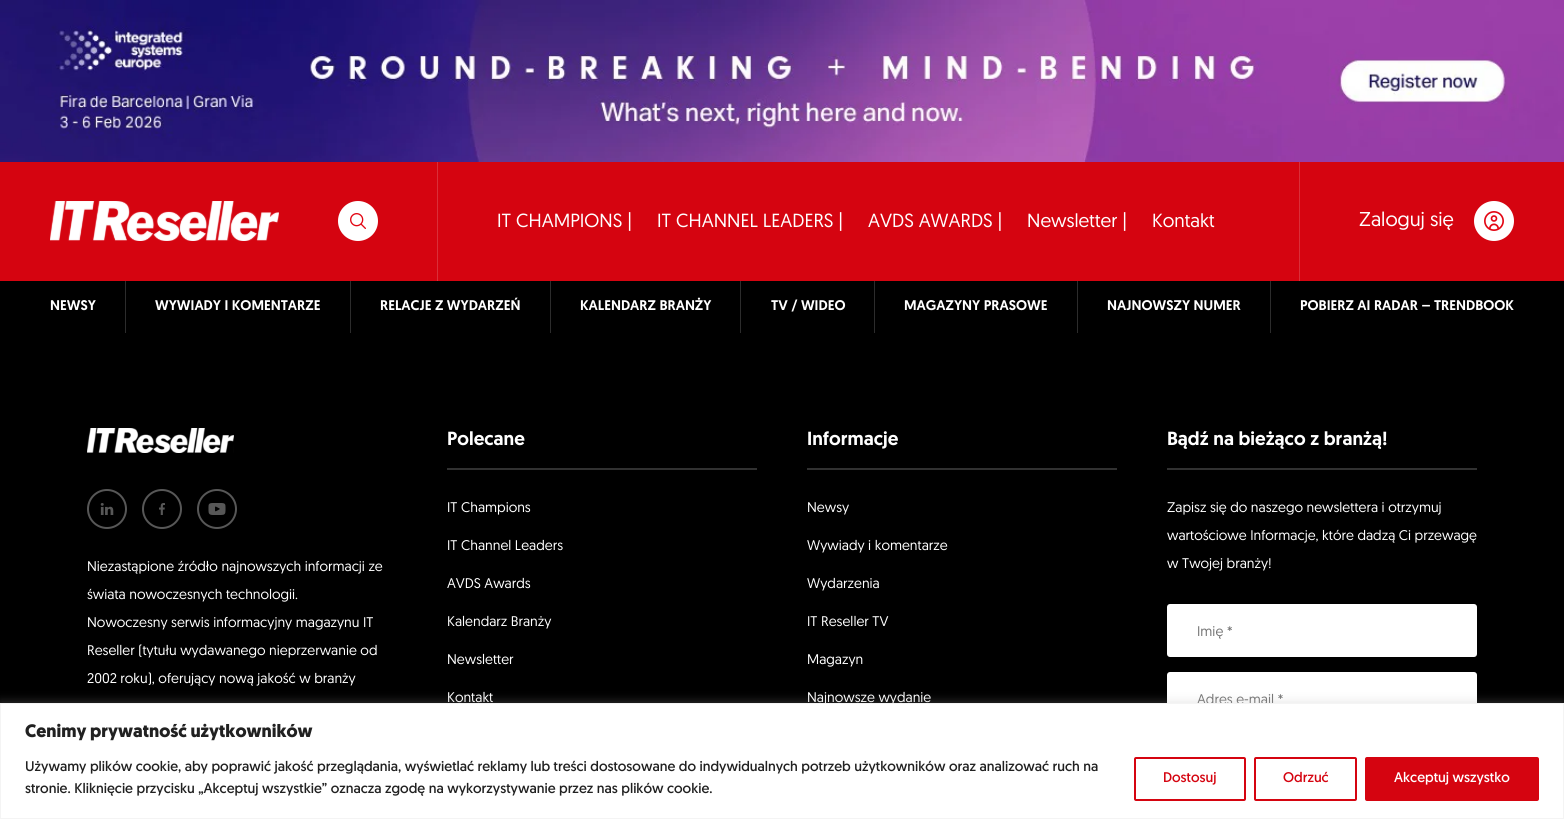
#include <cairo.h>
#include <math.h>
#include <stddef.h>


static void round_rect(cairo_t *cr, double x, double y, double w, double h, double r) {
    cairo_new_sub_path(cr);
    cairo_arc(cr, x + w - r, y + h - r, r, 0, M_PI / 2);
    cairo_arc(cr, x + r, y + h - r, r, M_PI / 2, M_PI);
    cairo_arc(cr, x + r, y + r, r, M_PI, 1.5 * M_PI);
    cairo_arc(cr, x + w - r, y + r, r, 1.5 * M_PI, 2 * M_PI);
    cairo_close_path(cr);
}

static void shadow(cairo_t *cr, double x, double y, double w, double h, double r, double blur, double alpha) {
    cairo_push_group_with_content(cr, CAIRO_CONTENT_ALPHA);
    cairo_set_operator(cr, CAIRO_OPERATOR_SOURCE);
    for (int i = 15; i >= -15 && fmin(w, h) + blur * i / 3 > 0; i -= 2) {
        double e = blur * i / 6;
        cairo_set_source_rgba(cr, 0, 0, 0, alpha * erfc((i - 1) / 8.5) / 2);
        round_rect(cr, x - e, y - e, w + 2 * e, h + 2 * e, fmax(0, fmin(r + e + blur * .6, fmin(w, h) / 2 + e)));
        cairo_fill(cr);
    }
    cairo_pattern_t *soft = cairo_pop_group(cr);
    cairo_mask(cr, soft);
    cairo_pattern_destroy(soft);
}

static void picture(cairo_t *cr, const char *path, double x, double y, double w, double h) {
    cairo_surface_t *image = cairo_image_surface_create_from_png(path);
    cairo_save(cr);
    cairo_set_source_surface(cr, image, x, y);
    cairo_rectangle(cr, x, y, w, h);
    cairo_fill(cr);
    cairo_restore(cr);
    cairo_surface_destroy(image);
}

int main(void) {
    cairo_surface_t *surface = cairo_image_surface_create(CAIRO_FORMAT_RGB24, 1564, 819);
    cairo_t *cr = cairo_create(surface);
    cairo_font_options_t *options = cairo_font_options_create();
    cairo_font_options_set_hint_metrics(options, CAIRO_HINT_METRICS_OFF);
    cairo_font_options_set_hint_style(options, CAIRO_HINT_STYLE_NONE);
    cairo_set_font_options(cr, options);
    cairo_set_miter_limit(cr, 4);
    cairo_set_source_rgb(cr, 0, 0, 0);
    cairo_paint(cr);
    picture(cr, "img1.png", 0, 0, 1564, 162);
    cairo_set_source_rgb(cr, 0.835, 0.016, 0.063);
    cairo_rectangle(cr, 0, 162, 1564, 119);
    cairo_fill(cr);
    picture(cr, "img2.png", 50, 201, 229, 40);
    cairo_set_source_rgb(cr, 1, 1, 1);
    cairo_arc(cr, 358, 221, 20, 0, 2 * M_PI);
    cairo_fill(cr);
    picture(cr, "img3.png", 350, 213, 16, 16);
    cairo_set_source_rgb(cr, 0.855, 0.184, 0.224);
    cairo_rectangle(cr, 437, 162, 1, 119);
    cairo_fill(cr);
    cairo_select_font_face(cr, "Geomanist", CAIRO_FONT_SLANT_NORMAL, CAIRO_FONT_WEIGHT_NORMAL);
    cairo_set_font_size(cr, 19);
    cairo_set_source_rgb(cr, 1, 1, 1);
    cairo_move_to(cr, 497, 227);
    cairo_show_text(cr, "IT CHAMPIONS |");
    cairo_move_to(cr, 657, 227);
    cairo_show_text(cr, "IT CHANNEL LEADERS |");
    cairo_move_to(cr, 868, 227);
    cairo_show_text(cr, "AVDS AWARDS |");
    cairo_move_to(cr, 1027, 227);
    cairo_show_text(cr, "Newsletter |");
    cairo_move_to(cr, 1152, 227);
    cairo_show_text(cr, "Kontakt");
    cairo_set_source_rgb(cr, 0.855, 0.184, 0.224);
    cairo_rectangle(cr, 1299, 162, 1, 119);
    cairo_fill(cr);
    cairo_set_font_size(cr, 20);
    cairo_set_source_rgb(cr, 1, 1, 1);
    cairo_move_to(cr, 1359, 226);
    cairo_show_text(cr, "Zaloguj się");
    cairo_new_path(cr);
    cairo_arc(cr, 1494, 221, 20, 0, 2 * M_PI);
    cairo_fill(cr);
    picture(cr, "img4.png", 1484, 211, 20, 20);
    cairo_select_font_face(cr, "Geomanist Medium", CAIRO_FONT_SLANT_NORMAL, CAIRO_FONT_WEIGHT_NORMAL);
    cairo_set_font_size(cr, 14);
    cairo_move_to(cr, 50, 310);
    cairo_show_text(cr, "NEWSY");
    cairo_set_source_rgb(cr, 0.173, 0.173, 0.173);
    cairo_rectangle(cr, 125, 281, 1, 52);
    cairo_fill(cr);
    cairo_set_source_rgb(cr, 1, 1, 1);
    cairo_move_to(cr, 155, 310);
    cairo_show_text(cr, "WYWIADY I KOMENTARZE");
    cairo_set_source_rgb(cr, 0.173, 0.173, 0.173);
    cairo_rectangle(cr, 350, 281, 1, 52);
    cairo_fill(cr);
    cairo_set_source_rgb(cr, 1, 1, 1);
    cairo_move_to(cr, 380, 310);
    cairo_show_text(cr, "RELACJE Z WYDARZEŃ");
    cairo_set_source_rgb(cr, 0.173, 0.173, 0.173);
    cairo_rectangle(cr, 550, 281, 1, 52);
    cairo_fill(cr);
    cairo_set_source_rgb(cr, 1, 1, 1);
    cairo_move_to(cr, 580, 310);
    cairo_show_text(cr, "KALENDARZ BRANŻY");
    cairo_set_source_rgb(cr, 0.173, 0.173, 0.173);
    cairo_rectangle(cr, 740, 281, 1, 52);
    cairo_fill(cr);
    cairo_set_source_rgb(cr, 1, 1, 1);
    cairo_move_to(cr, 771, 310);
    cairo_show_text(cr, "TV / WIDEO");
    cairo_set_source_rgb(cr, 0.173, 0.173, 0.173);
    cairo_rectangle(cr, 874, 281, 1, 52);
    cairo_fill(cr);
    cairo_set_source_rgb(cr, 1, 1, 1);
    cairo_move_to(cr, 904, 310);
    cairo_show_text(cr, "MAGAZYNY PRASOWE");
    cairo_set_source_rgb(cr, 0.173, 0.173, 0.173);
    cairo_rectangle(cr, 1077, 281, 1, 52);
    cairo_fill(cr);
    cairo_set_source_rgb(cr, 1, 1, 1);
    cairo_move_to(cr, 1107, 310);
    cairo_show_text(cr, "NAJNOWSZY NUMER");
    cairo_set_source_rgb(cr, 0.173, 0.173, 0.173);
    cairo_rectangle(cr, 1270, 281, 1, 52);
    cairo_fill(cr);
    cairo_set_source_rgb(cr, 1, 1, 1);
    cairo_move_to(cr, 1300, 310);
    cairo_show_text(cr, "POBIERZ AI RADAR – TRENDBOOK");
    picture(cr, "img5.png", 87, 428, 147, 25);
    cairo_arc(cr, 107, 509, 19, 0, 2 * M_PI);
    cairo_set_source_rgb(cr, 0.341, 0.341, 0.341);
    cairo_stroke(cr);
    picture(cr, "img6.png", 100, 503, 14, 12);
    cairo_arc(cr, 162, 509, 19, 0, 2 * M_PI);
    cairo_stroke(cr);
    picture(cr, "img7.png", 159, 503, 6, 12);
    cairo_arc(cr, 217, 509, 19, 0, 2 * M_PI);
    cairo_stroke(cr);
    picture(cr, "img8.png", 208, 503, 18, 12);
    cairo_select_font_face(cr, "Geomanist", CAIRO_FONT_SLANT_NORMAL, CAIRO_FONT_WEIGHT_NORMAL);
    cairo_set_source_rgb(cr, 1, 1, 1);
    cairo_move_to(cr, 87, 571);
    cairo_show_text(cr, "Niezastąpione źródło najnowszych informacji ze");
    cairo_move_to(cr, 87, 599);
    cairo_show_text(cr, "świata nowoczesnych technologii.");
    cairo_move_to(cr, 87, 627);
    cairo_show_text(cr, "Nowoczesny serwis informacyjny magazynu IT");
    cairo_move_to(cr, 87, 655);
    cairo_show_text(cr, "Reseller (tytułu wydawanego nieprzerwanie od");
    cairo_move_to(cr, 87, 683);
    cairo_show_text(cr, "2002 roku), oferujący nową jakość w branży");
    cairo_set_source_rgb(cr, 0.192, 0.192, 0.192);
    cairo_rectangle(cr, 447, 468, 310, 2);
    cairo_fill(cr);
    cairo_select_font_face(cr, "Geomanist Medium", CAIRO_FONT_SLANT_NORMAL, CAIRO_FONT_WEIGHT_NORMAL);
    cairo_set_font_size(cr, 19);
    cairo_set_source_rgb(cr, 1, 1, 1);
    cairo_move_to(cr, 447, 445);
    cairo_show_text(cr, "Polecane");
    cairo_select_font_face(cr, "Geomanist", CAIRO_FONT_SLANT_NORMAL, CAIRO_FONT_WEIGHT_NORMAL);
    cairo_set_font_size(cr, 14);
    cairo_move_to(cr, 447, 512);
    cairo_show_text(cr, "IT Champions");
    cairo_move_to(cr, 447, 550);
    cairo_show_text(cr, "IT Channel Leaders");
    cairo_move_to(cr, 447, 588);
    cairo_show_text(cr, "AVDS Awards");
    cairo_move_to(cr, 447, 626);
    cairo_show_text(cr, "Kalendarz Branży");
    cairo_move_to(cr, 447, 664);
    cairo_show_text(cr, "Newsletter");
    cairo_move_to(cr, 447, 702);
    cairo_show_text(cr, "Kontakt");
    cairo_set_source_rgb(cr, 0.192, 0.192, 0.192);
    cairo_rectangle(cr, 807, 468, 310, 2);
    cairo_fill(cr);
    cairo_select_font_face(cr, "Geomanist Medium", CAIRO_FONT_SLANT_NORMAL, CAIRO_FONT_WEIGHT_NORMAL);
    cairo_set_font_size(cr, 19);
    cairo_set_source_rgb(cr, 1, 1, 1);
    cairo_move_to(cr, 807, 445);
    cairo_show_text(cr, "Informacje");
    cairo_select_font_face(cr, "Geomanist", CAIRO_FONT_SLANT_NORMAL, CAIRO_FONT_WEIGHT_NORMAL);
    cairo_set_font_size(cr, 14);
    cairo_move_to(cr, 807, 512);
    cairo_show_text(cr, "Newsy");
    cairo_move_to(cr, 807, 550);
    cairo_show_text(cr, "Wywiady i komentarze");
    cairo_move_to(cr, 807, 588);
    cairo_show_text(cr, "Wydarzenia");
    cairo_move_to(cr, 807, 626);
    cairo_show_text(cr, "IT Reseller TV");
    cairo_move_to(cr, 807, 664);
    cairo_show_text(cr, "Magazyn");
    cairo_move_to(cr, 807, 702);
    cairo_show_text(cr, "Najnowsze wydanie");
    cairo_set_source_rgb(cr, 0.192, 0.192, 0.192);
    cairo_rectangle(cr, 1167, 468, 310, 2);
    cairo_fill(cr);
    cairo_select_font_face(cr, "Geomanist Medium", CAIRO_FONT_SLANT_NORMAL, CAIRO_FONT_WEIGHT_NORMAL);
    cairo_set_font_size(cr, 19);
    cairo_set_source_rgb(cr, 1, 1, 1);
    cairo_move_to(cr, 1167, 445);
    cairo_show_text(cr, "Bądź na bieżąco z branżą!");
    cairo_select_font_face(cr, "Geomanist", CAIRO_FONT_SLANT_NORMAL, CAIRO_FONT_WEIGHT_NORMAL);
    cairo_set_font_size(cr, 14);
    cairo_move_to(cr, 1167, 512);
    cairo_show_text(cr, "Zapisz się do naszego newslettera i otrzymuj");
    cairo_move_to(cr, 1167, 540);
    cairo_show_text(cr, "wartościowe Informacje, które dadzą Ci przewagę");
    cairo_move_to(cr, 1167, 568);
    cairo_show_text(cr, "w Twojej branży!");
    round_rect(cr, 1167, 604, 310, 53, 3);
    cairo_fill(cr);
    cairo_set_source_rgb(cr, 0.459, 0.459, 0.459);
    cairo_move_to(cr, 1197, 636);
    cairo_show_text(cr, "Imię *");
    cairo_set_source_rgb(cr, 1, 1, 1);
    round_rect(cr, 1167, 672, 310, 53, 3);
    cairo_fill(cr);
    cairo_set_source_rgb(cr, 0.459, 0.459, 0.459);
    cairo_move_to(cr, 1197, 704);
    cairo_show_text(cr, "Adres e-mail *");
    cairo_set_source_rgb(cr, 0.675, 0.671, 0.671);
    shadow(cr, 0, 702, 1564, 116, 0, 5, 0.3);
    cairo_set_source_rgb(cr, 1, 1, 1);
    cairo_rectangle(cr, 0.5, 703.5, 1563, 115);
    cairo_fill_preserve(cr);
    cairo_set_source_rgb(cr, 0.957, 0.957, 0.957);
    cairo_set_line_width(cr, 1);
    cairo_stroke(cr);
    cairo_select_font_face(cr, "Geomanist", CAIRO_FONT_SLANT_NORMAL, CAIRO_FONT_WEIGHT_BOLD);
    cairo_set_font_size(cr, 18);
    cairo_set_source_rgb(cr, 0.129, 0.129, 0.129);
    cairo_move_to(cr, 25, 737);
    cairo_show_text(cr, "Cenimy prywatność użytkowników");
    cairo_select_font_face(cr, "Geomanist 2", CAIRO_FONT_SLANT_NORMAL, CAIRO_FONT_WEIGHT_NORMAL);
    cairo_set_font_size(cr, 14);
    cairo_move_to(cr, 25, 771);
    cairo_show_text(cr, "Używamy plików cookie, aby poprawić jakość przeglądania, wyświetlać reklamy lub treści dostosowane do indywidualnych potrzeb użytkowników oraz analizować ruch na");
    cairo_move_to(cr, 25, 793);
    cairo_show_text(cr, "stronie. Kliknięcie przycisku „Akceptuj wszystkie” oznacza zgodę na wykorzystywanie przez nas plików cookie.");
    round_rect(cr, 1135, 758, 110, 42, 1);
    cairo_set_source_rgb(cr, 0.835, 0.016, 0.063);
    cairo_set_line_width(cr, 2);
    cairo_stroke(cr);
    cairo_move_to(cr, 1163, 782);
    cairo_show_text(cr, "Dostosuj");
    round_rect(cr, 1255, 758, 101, 42, 1);
    cairo_stroke(cr);
    cairo_move_to(cr, 1283, 782);
    cairo_show_text(cr, "Odrzuć");
    round_rect(cr, 1366, 758, 172, 42, 1);
    cairo_fill_preserve(cr);
    cairo_stroke(cr);
    cairo_set_source_rgb(cr, 1, 1, 1);
    cairo_move_to(cr, 1394, 782);
    cairo_show_text(cr, "Akceptuj wszystko");
    cairo_surface_write_to_png(surface, "page.png");
    cairo_font_options_destroy(options);
    cairo_destroy(cr);
    cairo_surface_destroy(surface);
    return 0;
}
